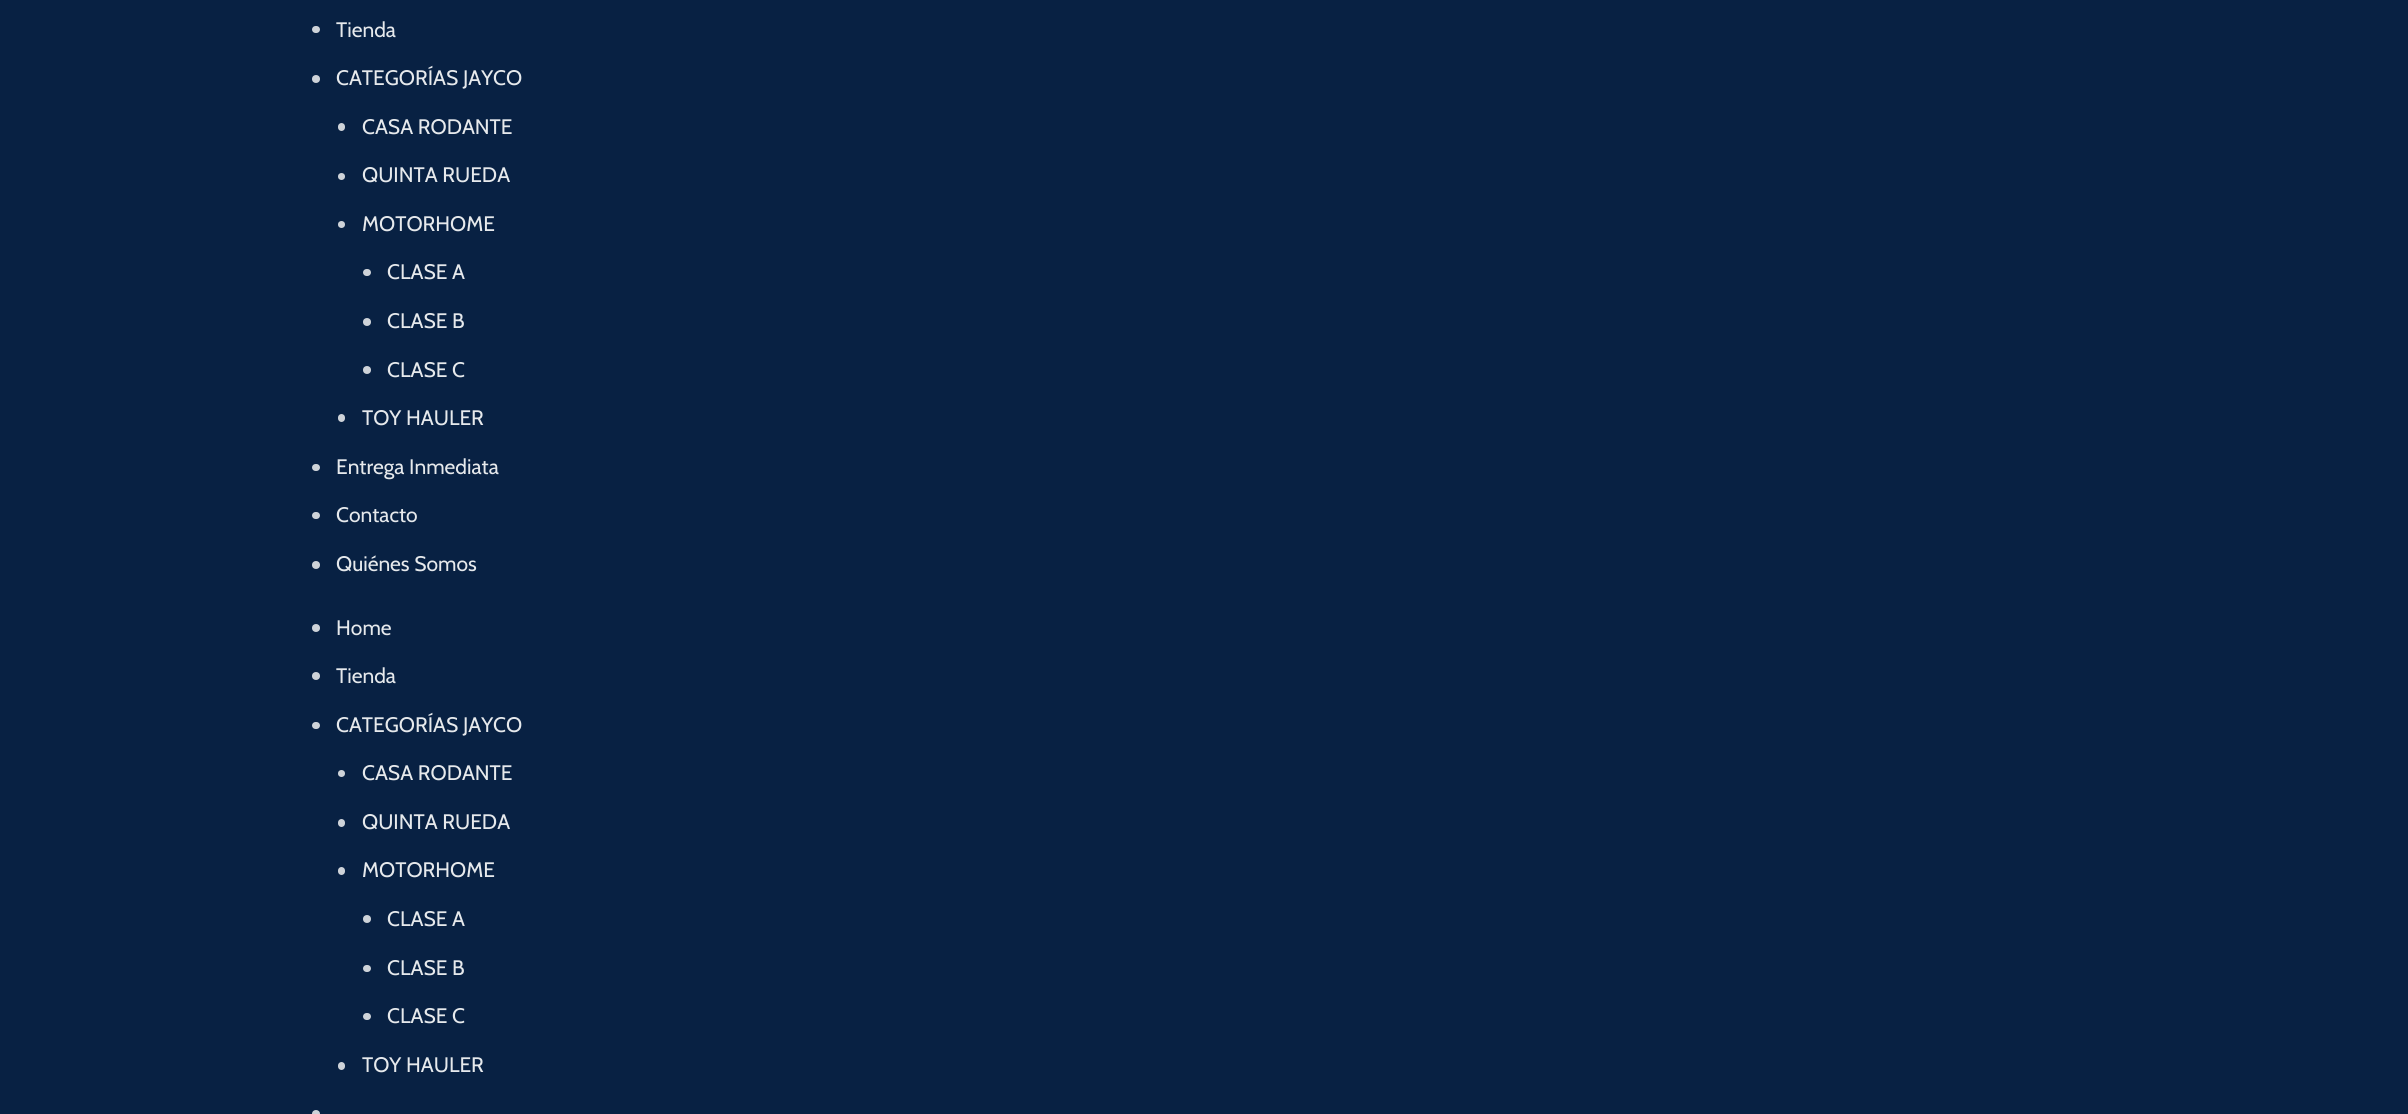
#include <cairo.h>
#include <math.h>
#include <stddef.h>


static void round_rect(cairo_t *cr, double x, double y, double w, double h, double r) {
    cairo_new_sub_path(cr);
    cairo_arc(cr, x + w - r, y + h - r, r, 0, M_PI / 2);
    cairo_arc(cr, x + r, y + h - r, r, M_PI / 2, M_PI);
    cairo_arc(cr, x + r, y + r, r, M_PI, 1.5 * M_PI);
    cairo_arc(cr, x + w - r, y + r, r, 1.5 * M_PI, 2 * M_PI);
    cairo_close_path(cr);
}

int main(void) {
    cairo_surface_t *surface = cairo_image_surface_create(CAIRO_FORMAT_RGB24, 2408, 1114);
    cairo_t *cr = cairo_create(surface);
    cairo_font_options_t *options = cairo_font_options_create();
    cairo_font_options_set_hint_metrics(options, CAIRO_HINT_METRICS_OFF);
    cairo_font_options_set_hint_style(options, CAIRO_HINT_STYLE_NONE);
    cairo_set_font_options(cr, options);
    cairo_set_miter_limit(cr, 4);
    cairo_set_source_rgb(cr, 0.035, 0.129, 0.263);
    cairo_paint(cr);
    cairo_set_source_rgb(cr, 0.808, 0.827, 0.851);
    round_rect(cr, 312, 26, 8, 7, 3.5);
    cairo_fill(cr);
    cairo_select_font_face(cr, "Cabin", CAIRO_FONT_SLANT_NORMAL, CAIRO_FONT_WEIGHT_NORMAL);
    cairo_set_font_size(cr, 21);
    cairo_set_source_rgb(cr, 0.902, 0.914, 0.925);
    cairo_move_to(cr, 336, 37);
    cairo_show_text(cr, "Tienda");
    cairo_set_source_rgb(cr, 0.808, 0.827, 0.851);
    cairo_new_path(cr);
    cairo_arc(cr, 316, 79, 4, 0, 2 * M_PI);
    cairo_fill(cr);
    cairo_set_source_rgb(cr, 0.902, 0.914, 0.925);
    cairo_move_to(cr, 336, 85);
    cairo_show_text(cr, "CATEGORÍAS JAYCO");
    cairo_set_source_rgb(cr, 0.808, 0.827, 0.851);
    round_rect(cr, 338, 123, 7, 8, 3.5);
    cairo_fill(cr);
    cairo_set_source_rgb(cr, 0.902, 0.914, 0.925);
    cairo_move_to(cr, 362, 134);
    cairo_show_text(cr, "CASA RODANTE");
    cairo_set_source_rgb(cr, 0.808, 0.827, 0.851);
    cairo_new_path(cr);
    cairo_arc(cr, 341.5, 176.5, 3.5, 0, 2 * M_PI);
    cairo_fill(cr);
    cairo_set_source_rgb(cr, 0.902, 0.914, 0.925);
    cairo_move_to(cr, 362, 182);
    cairo_show_text(cr, "QUINTA RUEDA");
    cairo_set_source_rgb(cr, 0.808, 0.827, 0.851);
    cairo_new_path(cr);
    cairo_arc(cr, 341.5, 224.5, 3.5, 0, 2 * M_PI);
    cairo_fill(cr);
    cairo_set_source_rgb(cr, 0.902, 0.914, 0.925);
    cairo_move_to(cr, 362, 231);
    cairo_show_text(cr, "MOTORHOME");
    cairo_set_source_rgb(cr, 0.808, 0.827, 0.851);
    round_rect(cr, 363, 269, 8, 7, 3.5);
    cairo_fill(cr);
    cairo_set_source_rgb(cr, 0.902, 0.914, 0.925);
    cairo_move_to(cr, 387, 279);
    cairo_show_text(cr, "CLASE A");
    cairo_set_source_rgb(cr, 0.808, 0.827, 0.851);
    cairo_new_path(cr);
    cairo_arc(cr, 367, 322, 4, 0, 2 * M_PI);
    cairo_fill(cr);
    cairo_set_source_rgb(cr, 0.902, 0.914, 0.925);
    cairo_move_to(cr, 387, 328);
    cairo_show_text(cr, "CLASE B");
    cairo_set_source_rgb(cr, 0.808, 0.827, 0.851);
    cairo_new_path(cr);
    cairo_arc(cr, 367, 370, 4, 0, 2 * M_PI);
    cairo_fill(cr);
    cairo_set_source_rgb(cr, 0.902, 0.914, 0.925);
    cairo_move_to(cr, 387, 377);
    cairo_show_text(cr, "CLASE C");
    cairo_set_source_rgb(cr, 0.808, 0.827, 0.851);
    round_rect(cr, 338, 414, 7, 8, 3.5);
    cairo_fill(cr);
    cairo_set_source_rgb(cr, 0.902, 0.914, 0.925);
    cairo_move_to(cr, 362, 425);
    cairo_show_text(cr, "TOY HAULER");
    cairo_set_source_rgb(cr, 0.808, 0.827, 0.851);
    round_rect(cr, 312, 464, 8, 7, 3.5);
    cairo_fill(cr);
    cairo_set_source_rgb(cr, 0.902, 0.914, 0.925);
    cairo_move_to(cr, 336, 474);
    cairo_show_text(cr, "Entrega Inmediata");
    cairo_set_source_rgb(cr, 0.808, 0.827, 0.851);
    round_rect(cr, 312, 512, 8, 7, 3.5);
    cairo_fill(cr);
    cairo_set_source_rgb(cr, 0.902, 0.914, 0.925);
    cairo_move_to(cr, 336, 522);
    cairo_show_text(cr, "Contacto");
    cairo_set_source_rgb(cr, 0.808, 0.827, 0.851);
    cairo_new_path(cr);
    cairo_arc(cr, 316, 565, 4, 0, 2 * M_PI);
    cairo_fill(cr);
    cairo_set_source_rgb(cr, 0.902, 0.914, 0.925);
    cairo_move_to(cr, 336, 571);
    cairo_show_text(cr, "Quiénes Somos");
    cairo_set_source_rgb(cr, 0.808, 0.827, 0.851);
    cairo_new_path(cr);
    cairo_arc(cr, 316, 628, 4, 0, 2 * M_PI);
    cairo_fill(cr);
    cairo_set_source_rgb(cr, 0.902, 0.914, 0.925);
    cairo_move_to(cr, 336, 635);
    cairo_show_text(cr, "Home");
    cairo_set_source_rgb(cr, 0.808, 0.827, 0.851);
    cairo_new_path(cr);
    cairo_arc(cr, 316, 676, 4, 0, 2 * M_PI);
    cairo_fill(cr);
    cairo_set_source_rgb(cr, 0.902, 0.914, 0.925);
    cairo_move_to(cr, 336, 683);
    cairo_show_text(cr, "Tienda");
    cairo_set_source_rgb(cr, 0.808, 0.827, 0.851);
    round_rect(cr, 312, 722, 8, 7, 3.5);
    cairo_fill(cr);
    cairo_set_source_rgb(cr, 0.902, 0.914, 0.925);
    cairo_move_to(cr, 336, 732);
    cairo_show_text(cr, "CATEGORÍAS JAYCO");
    cairo_set_source_rgb(cr, 0.808, 0.827, 0.851);
    cairo_new_path(cr);
    cairo_arc(cr, 341.5, 773.5, 3.5, 0, 2 * M_PI);
    cairo_fill(cr);
    cairo_set_source_rgb(cr, 0.902, 0.914, 0.925);
    cairo_move_to(cr, 362, 780);
    cairo_show_text(cr, "CASA RODANTE");
    cairo_set_source_rgb(cr, 0.808, 0.827, 0.851);
    round_rect(cr, 338, 819, 7, 8, 3.5);
    cairo_fill(cr);
    cairo_set_source_rgb(cr, 0.902, 0.914, 0.925);
    cairo_move_to(cr, 362, 829);
    cairo_show_text(cr, "QUINTA RUEDA");
    cairo_set_source_rgb(cr, 0.808, 0.827, 0.851);
    round_rect(cr, 338, 867, 7, 8, 3.5);
    cairo_fill(cr);
    cairo_set_source_rgb(cr, 0.902, 0.914, 0.925);
    cairo_move_to(cr, 362, 877);
    cairo_show_text(cr, "MOTORHOME");
    cairo_set_source_rgb(cr, 0.808, 0.827, 0.851);
    cairo_new_path(cr);
    cairo_arc(cr, 367, 919, 4, 0, 2 * M_PI);
    cairo_fill(cr);
    cairo_set_source_rgb(cr, 0.902, 0.914, 0.925);
    cairo_move_to(cr, 387, 926);
    cairo_show_text(cr, "CLASE A");
    cairo_set_source_rgb(cr, 0.808, 0.827, 0.851);
    round_rect(cr, 363, 965, 8, 7, 3.5);
    cairo_fill(cr);
    cairo_set_source_rgb(cr, 0.902, 0.914, 0.925);
    cairo_move_to(cr, 387, 975);
    cairo_show_text(cr, "CLASE B");
    cairo_set_source_rgb(cr, 0.808, 0.827, 0.851);
    round_rect(cr, 363, 1013, 8, 7, 3.5);
    cairo_fill(cr);
    cairo_set_source_rgb(cr, 0.902, 0.914, 0.925);
    cairo_move_to(cr, 387, 1023);
    cairo_show_text(cr, "CLASE C");
    cairo_set_source_rgb(cr, 0.808, 0.827, 0.851);
    round_rect(cr, 338, 1062, 7, 8, 3.5);
    cairo_fill(cr);
    cairo_set_source_rgb(cr, 0.902, 0.914, 0.925);
    cairo_move_to(cr, 362, 1072);
    cairo_show_text(cr, "TOY HAULER");
    cairo_set_source_rgb(cr, 0.808, 0.827, 0.851);
    cairo_new_path(cr);
    cairo_arc(cr, 316, 1114, 4, 0, 2 * M_PI);
    cairo_fill(cr);
    cairo_surface_write_to_png(surface, "page.png");
    cairo_font_options_destroy(options);
    cairo_destroy(cr);
    cairo_surface_destroy(surface);
    return 0;
}
